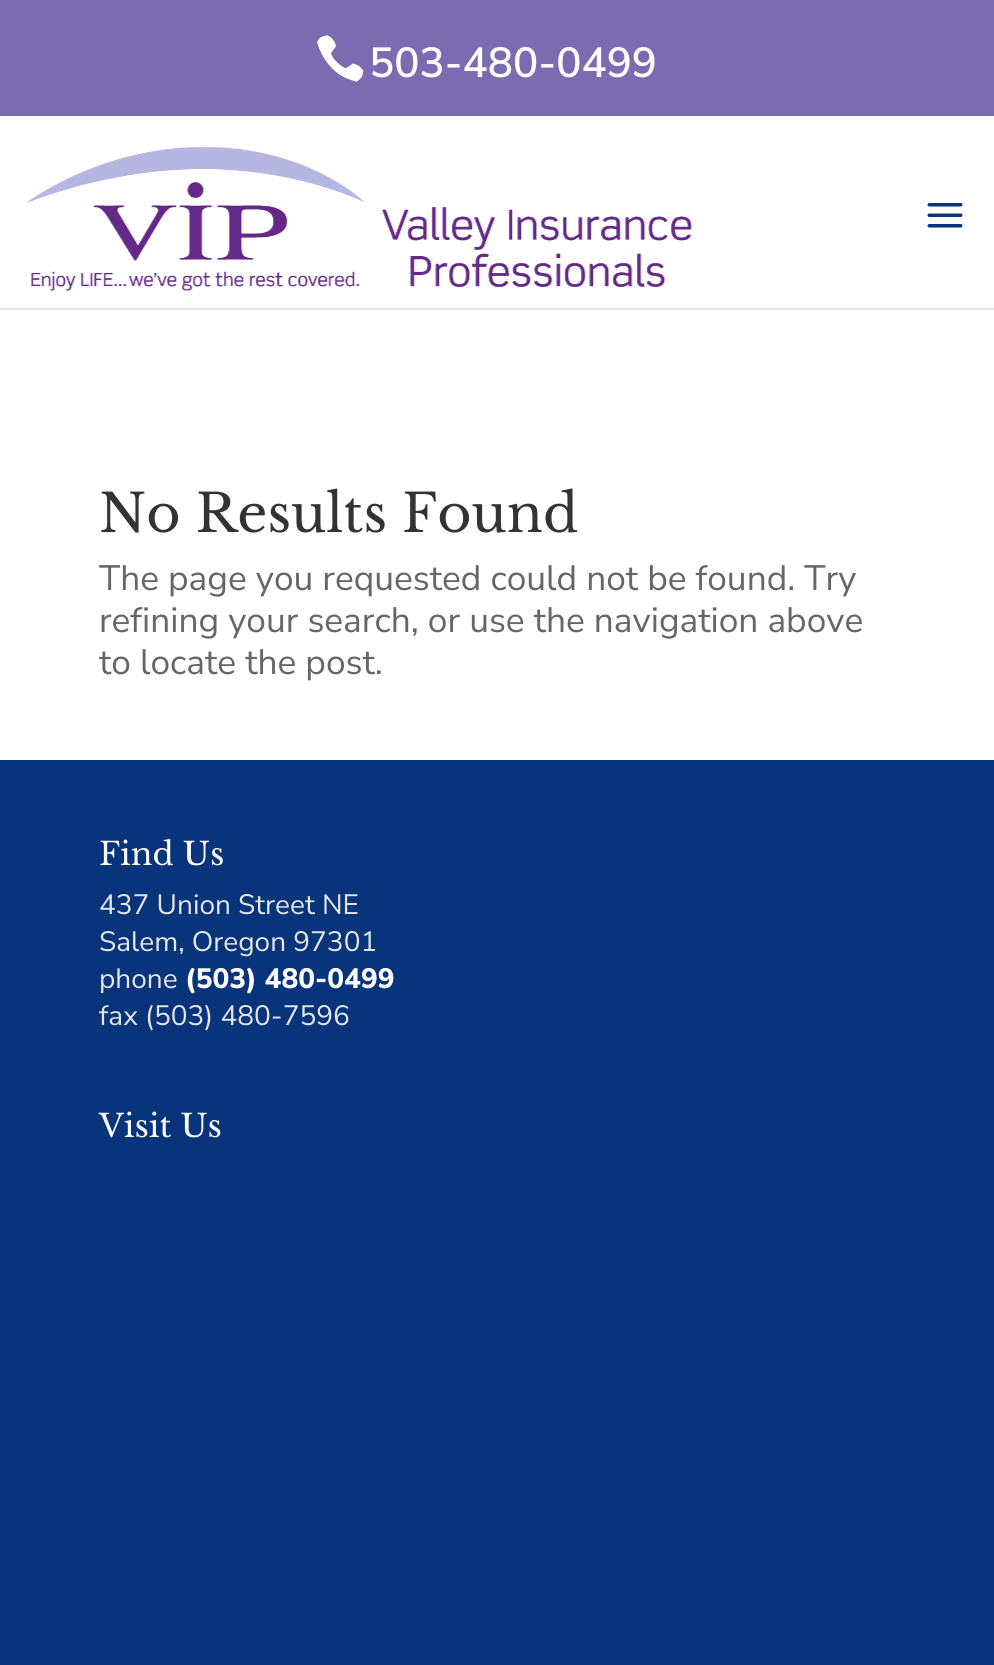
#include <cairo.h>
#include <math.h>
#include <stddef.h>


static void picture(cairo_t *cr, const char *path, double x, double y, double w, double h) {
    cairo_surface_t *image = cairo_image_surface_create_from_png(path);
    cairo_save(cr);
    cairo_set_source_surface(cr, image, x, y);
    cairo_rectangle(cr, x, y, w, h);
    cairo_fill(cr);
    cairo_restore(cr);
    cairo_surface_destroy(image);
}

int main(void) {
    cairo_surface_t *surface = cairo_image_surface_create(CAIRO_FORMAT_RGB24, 994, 1665);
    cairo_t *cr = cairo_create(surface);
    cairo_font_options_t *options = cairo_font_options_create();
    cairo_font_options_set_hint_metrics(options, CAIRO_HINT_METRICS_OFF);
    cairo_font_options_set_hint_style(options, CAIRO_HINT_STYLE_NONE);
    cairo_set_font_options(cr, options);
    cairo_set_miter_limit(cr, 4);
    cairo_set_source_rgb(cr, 1, 1, 1);
    cairo_paint(cr);
    cairo_set_source_rgb(cr, 0.482, 0.424, 0.698);
    cairo_rectangle(cr, 0, 0, 994, 116);
    cairo_fill(cr);
    picture(cr, "img1.png", 317, 35, 47, 47);
    cairo_select_font_face(cr, "Nunito Sans SemiBold", CAIRO_FONT_SLANT_NORMAL, CAIRO_FONT_WEIGHT_NORMAL);
    cairo_set_font_size(cr, 42);
    cairo_set_source_rgb(cr, 1, 1, 1);
    cairo_move_to(cr, 369, 77);
    cairo_show_text(cr, "503-480-0499");
    cairo_set_source_rgb(cr, 0.902, 0.902, 0.902);
    cairo_rectangle(cr, 0, 308, 994, 2);
    cairo_fill(cr);
    picture(cr, "img2.png", 26, 147, 666, 144);
    picture(cr, "img3.png", 927, 203, 36, 25);
    cairo_select_font_face(cr, "Libre Baskerville", CAIRO_FONT_SLANT_NORMAL, CAIRO_FONT_WEIGHT_NORMAL);
    cairo_set_font_size(cr, 52.5);
    cairo_set_source_rgb(cr, 0.2, 0.2, 0.2);
    cairo_move_to(cr, 99, 532);
    cairo_show_text(cr, "No Results Found");
    cairo_select_font_face(cr, "Nunito Sans", CAIRO_FONT_SLANT_NORMAL, CAIRO_FONT_WEIGHT_NORMAL);
    cairo_set_font_size(cr, 35.25);
    cairo_set_source_rgb(cr, 0.4, 0.4, 0.4);
    cairo_move_to(cr, 99, 590);
    cairo_show_text(cr, "The page you requested could not be found. Try");
    cairo_move_to(cr, 99, 632);
    cairo_show_text(cr, "refining your search, or use the navigation above");
    cairo_move_to(cr, 99, 674);
    cairo_show_text(cr, "to locate the post.");
    cairo_set_source_rgb(cr, 0.031, 0.204, 0.478);
    cairo_rectangle(cr, 0, 760, 994, 905);
    cairo_fill(cr);
    cairo_select_font_face(cr, "Libre Baskerville", CAIRO_FONT_SLANT_NORMAL, CAIRO_FONT_WEIGHT_NORMAL);
    cairo_set_font_size(cr, 31.5);
    cairo_set_source_rgb(cr, 1, 1, 1);
    cairo_move_to(cr, 99, 865);
    cairo_show_text(cr, "Find Us");
    cairo_select_font_face(cr, "Nunito Sans", CAIRO_FONT_SLANT_NORMAL, CAIRO_FONT_WEIGHT_NORMAL);
    cairo_set_font_size(cr, 28);
    cairo_set_source_rgb(cr, 0.898, 0.898, 0.898);
    cairo_move_to(cr, 99, 914);
    cairo_show_text(cr, "437 Union Street NE");
    cairo_move_to(cr, 99, 951);
    cairo_show_text(cr, "Salem, Oregon 97301");
    cairo_move_to(cr, 99, 988);
    cairo_show_text(cr, "phone");
    cairo_select_font_face(cr, "Nunito Sans ExtraBold", CAIRO_FONT_SLANT_NORMAL, CAIRO_FONT_WEIGHT_NORMAL);
    cairo_set_source_rgb(cr, 1, 1, 1);
    cairo_move_to(cr, 185, 988);
    cairo_show_text(cr, "(503) 480-0499");
    cairo_select_font_face(cr, "Nunito Sans", CAIRO_FONT_SLANT_NORMAL, CAIRO_FONT_WEIGHT_NORMAL);
    cairo_set_source_rgb(cr, 0.898, 0.898, 0.898);
    cairo_move_to(cr, 99, 1025);
    cairo_show_text(cr, "fax (503) 480-7596");
    cairo_select_font_face(cr, "Libre Baskerville", CAIRO_FONT_SLANT_NORMAL, CAIRO_FONT_WEIGHT_NORMAL);
    cairo_set_font_size(cr, 31.5);
    cairo_set_source_rgb(cr, 1, 1, 1);
    cairo_move_to(cr, 99, 1137);
    cairo_show_text(cr, "Visit Us");
    cairo_surface_write_to_png(surface, "page.png");
    cairo_font_options_destroy(options);
    cairo_destroy(cr);
    cairo_surface_destroy(surface);
    return 0;
}
